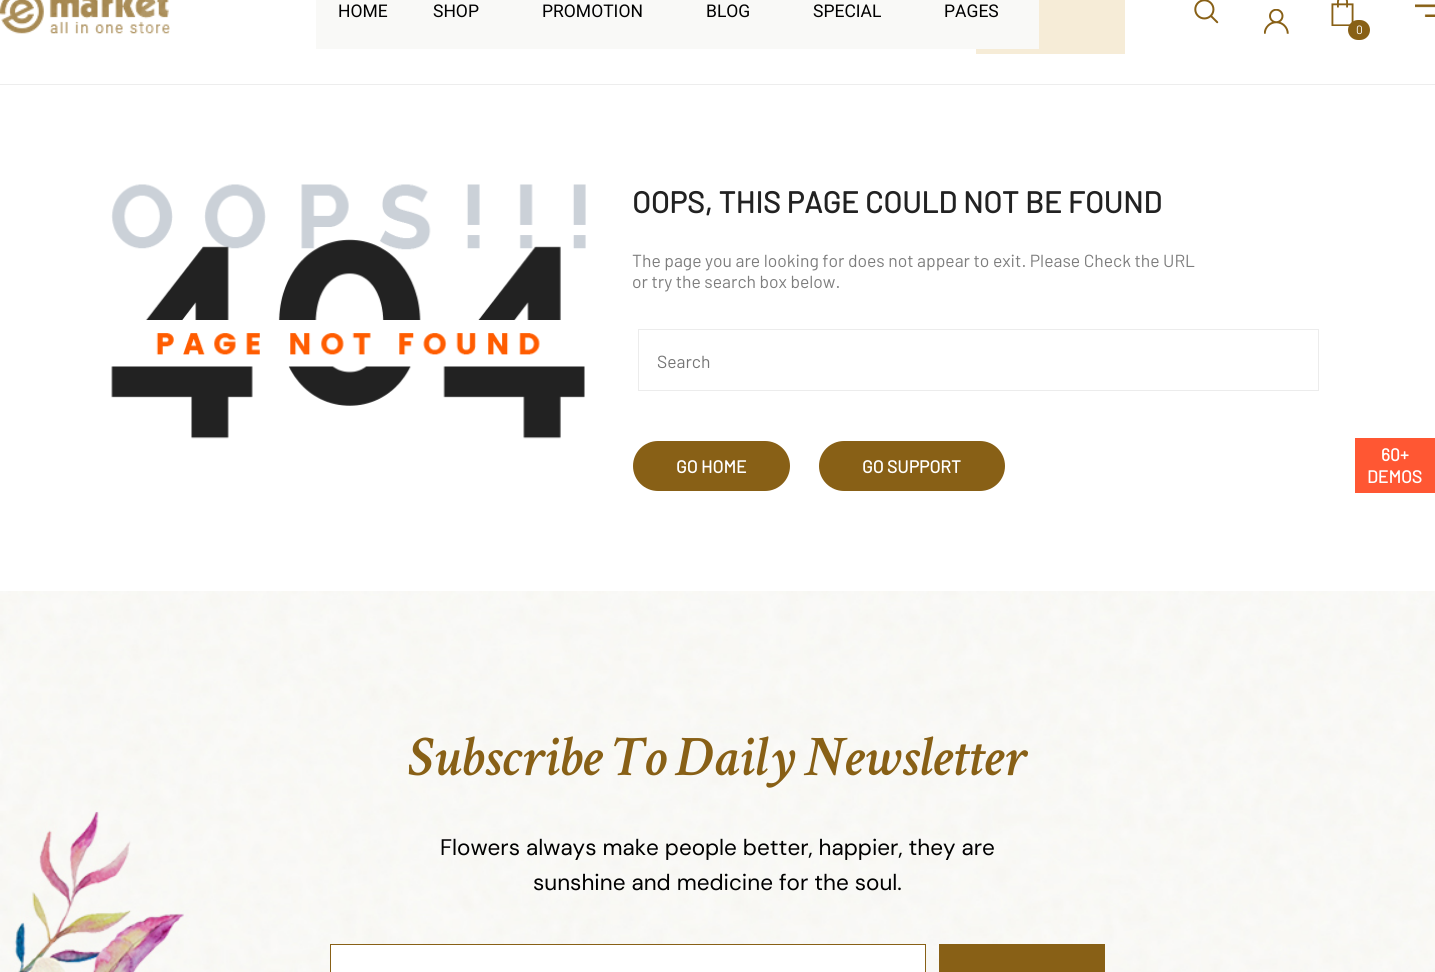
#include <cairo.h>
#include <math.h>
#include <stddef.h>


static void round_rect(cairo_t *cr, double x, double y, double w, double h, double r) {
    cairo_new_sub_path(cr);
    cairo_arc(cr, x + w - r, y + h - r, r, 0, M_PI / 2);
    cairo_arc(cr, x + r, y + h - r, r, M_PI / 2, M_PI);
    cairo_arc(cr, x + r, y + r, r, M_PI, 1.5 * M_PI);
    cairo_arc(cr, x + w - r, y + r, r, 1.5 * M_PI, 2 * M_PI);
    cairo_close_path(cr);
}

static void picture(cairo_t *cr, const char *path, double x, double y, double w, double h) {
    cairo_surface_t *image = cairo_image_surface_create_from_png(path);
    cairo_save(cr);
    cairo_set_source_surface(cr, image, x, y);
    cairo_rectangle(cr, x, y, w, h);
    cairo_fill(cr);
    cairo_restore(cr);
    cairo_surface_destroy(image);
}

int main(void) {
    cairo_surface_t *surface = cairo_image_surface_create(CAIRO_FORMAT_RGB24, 1435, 972);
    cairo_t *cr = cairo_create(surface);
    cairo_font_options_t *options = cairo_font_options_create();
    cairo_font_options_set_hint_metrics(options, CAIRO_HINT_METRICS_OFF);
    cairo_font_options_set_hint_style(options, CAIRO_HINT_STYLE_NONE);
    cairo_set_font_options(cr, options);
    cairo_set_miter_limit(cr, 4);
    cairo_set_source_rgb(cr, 1, 1, 1);
    cairo_paint(cr);
    cairo_set_source_rgb(cr, 0.929, 0.929, 0.929);
    cairo_rectangle(cr, 0, 84, 1435, 1);
    cairo_fill(cr);
    picture(cr, "img1.png", 0, 0, 170, 34);
    cairo_set_source_rgb(cr, 0.961, 0.922, 0.843);
    cairo_rectangle(cr, 976, 0, 149, 54);
    cairo_fill(cr);
    cairo_set_source_rgb(cr, 0.976, 0.973, 0.965);
    cairo_rectangle(cr, 316, 0, 723, 49);
    cairo_fill(cr);
    cairo_select_font_face(cr, "Roboto", CAIRO_FONT_SLANT_NORMAL, CAIRO_FONT_WEIGHT_NORMAL);
    cairo_set_font_size(cr, 17.5);
    cairo_set_source_rgb(cr, 0, 0, 0);
    cairo_move_to(cr, 338, 17);
    cairo_show_text(cr, "HOME");
    cairo_move_to(cr, 433, 17);
    cairo_show_text(cr, "SHOP");
    cairo_move_to(cr, 542, 17);
    cairo_show_text(cr, "PROMOTION");
    cairo_move_to(cr, 706, 17);
    cairo_show_text(cr, "BLOG");
    cairo_move_to(cr, 813, 17);
    cairo_show_text(cr, "SPECIAL");
    cairo_move_to(cr, 944, 17);
    cairo_show_text(cr, "PAGES");
    picture(cr, "img2.png", 1194, 0, 25, 24);
    picture(cr, "img3.png", 1264, 9, 25, 25);
    picture(cr, "img4.png", 1331, 0, 23, 26);
    cairo_set_source_rgb(cr, 0.533, 0.376, 0.086);
    round_rect(cr, 1348, 20, 22, 20, 10);
    cairo_fill(cr);
    cairo_select_font_face(cr, "Barlow", CAIRO_FONT_SLANT_NORMAL, CAIRO_FONT_WEIGHT_NORMAL);
    cairo_set_font_size(cr, 12);
    cairo_set_source_rgb(cr, 1, 1, 1);
    cairo_move_to(cr, 1356, 34);
    cairo_show_text(cr, "0");
    picture(cr, "img5.png", 1415, 4, 20, 13);
    picture(cr, "img6.png", 111, 184, 475, 255);
    cairo_select_font_face(cr, "Barlow", CAIRO_FONT_SLANT_NORMAL, CAIRO_FONT_WEIGHT_BOLD);
    cairo_set_font_size(cr, 30);
    cairo_set_source_rgb(cr, 0.133, 0.133, 0.133);
    cairo_move_to(cr, 632, 213);
    cairo_show_text(cr, "OOPS, THIS PAGE COULD NOT BE FOUND");
    cairo_select_font_face(cr, "Barlow", CAIRO_FONT_SLANT_NORMAL, CAIRO_FONT_WEIGHT_NORMAL);
    cairo_set_font_size(cr, 17.5);
    cairo_set_source_rgb(cr, 0.49, 0.49, 0.49);
    cairo_move_to(cr, 632, 267);
    cairo_show_text(cr, "The page you are looking for does not appear to exit. Please Check the URL");
    cairo_move_to(cr, 632, 288);
    cairo_show_text(cr, "or try the search box below.");
    cairo_rectangle(cr, 638.5, 329.5, 680, 61);
    cairo_set_source_rgb(cr, 0.922, 0.922, 0.922);
    cairo_set_line_width(cr, 1);
    cairo_stroke(cr);
    cairo_set_source_rgb(cr, 0.459, 0.459, 0.459);
    cairo_move_to(cr, 657, 368);
    cairo_show_text(cr, "Search");
    cairo_set_source_rgb(cr, 0.533, 0.376, 0.086);
    round_rect(cr, 633, 441, 157, 50, 25);
    cairo_fill(cr);
    cairo_select_font_face(cr, "Barlow", CAIRO_FONT_SLANT_NORMAL, CAIRO_FONT_WEIGHT_BOLD);
    cairo_set_source_rgb(cr, 1, 1, 1);
    cairo_move_to(cr, 676, 473);
    cairo_show_text(cr, "GO HOME");
    cairo_set_source_rgb(cr, 0.533, 0.376, 0.086);
    round_rect(cr, 819, 441, 186, 50, 25);
    cairo_fill(cr);
    cairo_set_source_rgb(cr, 1, 1, 1);
    cairo_move_to(cr, 862, 473);
    cairo_show_text(cr, "GO SUPPORT");
    picture(cr, "img7.png", 0, 591, 1435, 381);
    cairo_select_font_face(cr, "Crimson Text SemiBold", CAIRO_FONT_SLANT_ITALIC, CAIRO_FONT_WEIGHT_NORMAL);
    cairo_set_font_size(cr, 57.5);
    cairo_set_source_rgb(cr, 0.533, 0.376, 0.086);
    cairo_move_to(cr, 408, 775);
    cairo_show_text(cr, "Subscribe To Daily Newsletter");
    cairo_select_font_face(cr, "DM Sans", CAIRO_FONT_SLANT_NORMAL, CAIRO_FONT_WEIGHT_NORMAL);
    cairo_set_font_size(cr, 22.5);
    cairo_set_source_rgb(cr, 0, 0, 0);
    cairo_move_to(cr, 440, 855);
    cairo_show_text(cr, "Flowers always make people better, happier, they are");
    cairo_move_to(cr, 533, 890);
    cairo_show_text(cr, "sunshine and medicine for the soul.");
    cairo_set_source_rgb(cr, 1, 1, 1);
    cairo_rectangle(cr, 330.5, 944.5, 595, 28);
    cairo_fill_preserve(cr);
    cairo_set_source_rgb(cr, 0.533, 0.376, 0.086);
    cairo_stroke(cr);
    cairo_rectangle(cr, 939, 944, 166, 28);
    cairo_fill(cr);
    cairo_set_source_rgb(cr, 1, 0.341, 0.2);
    cairo_rectangle(cr, 1355, 438, 80, 55);
    cairo_fill(cr);
    cairo_select_font_face(cr, "Barlow", CAIRO_FONT_SLANT_NORMAL, CAIRO_FONT_WEIGHT_BOLD);
    cairo_set_font_size(cr, 17.5);
    cairo_set_source_rgb(cr, 1, 1, 1);
    cairo_move_to(cr, 1381, 461);
    cairo_show_text(cr, "60+");
    cairo_move_to(cr, 1367, 483);
    cairo_show_text(cr, "DEMOS");
    cairo_surface_write_to_png(surface, "page.png");
    cairo_font_options_destroy(options);
    cairo_destroy(cr);
    cairo_surface_destroy(surface);
    return 0;
}
